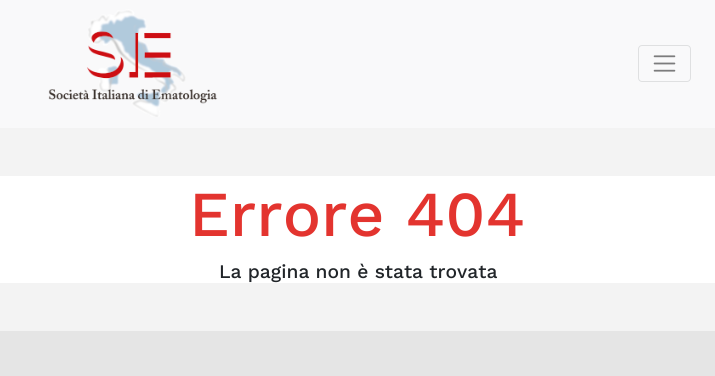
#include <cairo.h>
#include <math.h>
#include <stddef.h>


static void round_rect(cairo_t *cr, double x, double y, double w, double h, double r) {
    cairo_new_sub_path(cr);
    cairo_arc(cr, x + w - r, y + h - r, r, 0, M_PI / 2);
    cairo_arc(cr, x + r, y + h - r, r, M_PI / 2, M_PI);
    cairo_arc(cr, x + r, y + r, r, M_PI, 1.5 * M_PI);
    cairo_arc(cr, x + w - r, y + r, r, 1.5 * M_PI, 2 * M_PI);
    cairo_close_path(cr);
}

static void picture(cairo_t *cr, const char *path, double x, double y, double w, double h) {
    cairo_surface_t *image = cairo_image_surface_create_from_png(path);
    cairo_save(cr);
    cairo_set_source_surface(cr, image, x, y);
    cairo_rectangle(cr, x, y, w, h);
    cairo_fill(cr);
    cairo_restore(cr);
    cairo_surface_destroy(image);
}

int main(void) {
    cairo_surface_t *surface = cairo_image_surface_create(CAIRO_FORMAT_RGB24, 715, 376);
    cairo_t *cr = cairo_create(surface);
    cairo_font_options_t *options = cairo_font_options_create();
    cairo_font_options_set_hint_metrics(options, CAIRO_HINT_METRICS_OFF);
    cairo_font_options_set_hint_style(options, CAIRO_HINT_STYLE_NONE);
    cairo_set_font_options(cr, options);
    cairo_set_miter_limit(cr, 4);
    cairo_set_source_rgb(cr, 0.953, 0.953, 0.953);
    cairo_paint(cr);
    cairo_set_source_rgb(cr, 0.973, 0.976, 0.98);
    cairo_rectangle(cr, 0, 0, 715, 128);
    cairo_fill(cr);
    picture(cr, "img1.png", 48, 9, 170, 108);
    round_rect(cr, 638.5, 45.5, 52, 36, 3.5);
    cairo_set_source_rgb(cr, 0.875, 0.878, 0.882);
    cairo_set_line_width(cr, 1);
    cairo_stroke(cr);
    picture(cr, "img2.png", 653, 55, 23, 17);
    cairo_set_source_rgb(cr, 1, 1, 1);
    cairo_rectangle(cr, 0, 176, 715, 107);
    cairo_fill(cr);
    cairo_select_font_face(cr, "Work Sans Medium", CAIRO_FONT_SLANT_NORMAL, CAIRO_FONT_WEIGHT_NORMAL);
    cairo_set_font_size(cr, 64);
    cairo_set_source_rgb(cr, 0.89, 0.204, 0.184);
    cairo_move_to(cr, 189, 236);
    cairo_show_text(cr, "Errore 404");
    cairo_set_font_size(cr, 19.25);
    cairo_set_source_rgb(cr, 0.129, 0.145, 0.161);
    cairo_move_to(cr, 219, 278);
    cairo_show_text(cr, "La pagina non è stata trovata");
    cairo_set_source_rgb(cr, 0.898, 0.898, 0.898);
    cairo_rectangle(cr, 0, 331, 715, 45);
    cairo_fill(cr);
    cairo_surface_write_to_png(surface, "page.png");
    cairo_font_options_destroy(options);
    cairo_destroy(cr);
    cairo_surface_destroy(surface);
    return 0;
}
